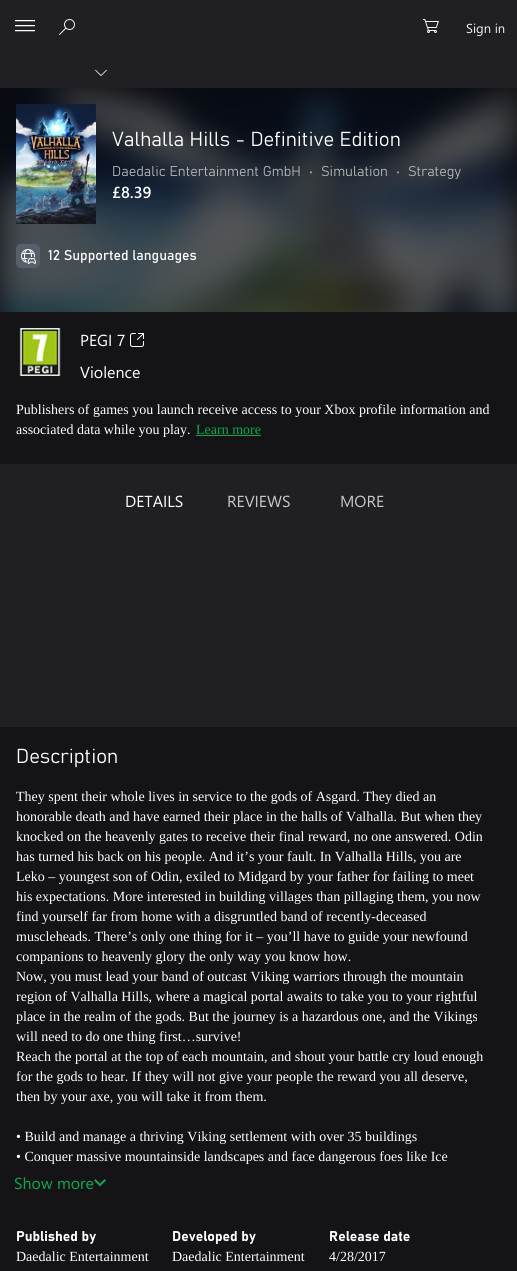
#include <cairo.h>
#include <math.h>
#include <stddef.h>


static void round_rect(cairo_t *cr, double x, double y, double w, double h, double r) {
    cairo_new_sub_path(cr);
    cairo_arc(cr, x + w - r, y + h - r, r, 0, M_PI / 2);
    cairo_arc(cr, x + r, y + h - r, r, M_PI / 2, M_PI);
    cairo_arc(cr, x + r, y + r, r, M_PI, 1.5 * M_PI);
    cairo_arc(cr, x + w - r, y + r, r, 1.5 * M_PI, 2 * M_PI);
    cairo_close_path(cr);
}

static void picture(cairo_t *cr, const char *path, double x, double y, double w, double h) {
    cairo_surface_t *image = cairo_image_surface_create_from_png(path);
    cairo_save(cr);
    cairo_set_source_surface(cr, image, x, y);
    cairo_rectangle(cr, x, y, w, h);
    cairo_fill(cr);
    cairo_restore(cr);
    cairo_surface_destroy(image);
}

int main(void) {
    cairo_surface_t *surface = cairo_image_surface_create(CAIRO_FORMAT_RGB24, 517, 1271);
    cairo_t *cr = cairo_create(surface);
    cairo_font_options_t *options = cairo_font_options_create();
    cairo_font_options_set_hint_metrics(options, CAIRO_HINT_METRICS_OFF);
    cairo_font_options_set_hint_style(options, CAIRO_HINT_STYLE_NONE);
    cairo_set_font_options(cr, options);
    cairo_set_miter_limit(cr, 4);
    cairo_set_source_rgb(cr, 0.125, 0.122, 0.141);
    cairo_paint(cr);
    cairo_set_source_rgb(cr, 0.047, 0.043, 0.051);
    cairo_rectangle(cr, 0, 88, 517, 224);
    cairo_fill(cr);
    picture(cr, "img1.png", 15, 20, 20, 12);
    picture(cr, "img2.png", 59, 19, 16, 16);
    picture(cr, "img3.png", 423, 19, 16, 14);
    cairo_select_font_face(cr, "Segoe UI", CAIRO_FONT_SLANT_NORMAL, CAIRO_FONT_WEIGHT_NORMAL);
    cairo_set_font_size(cr, 13);
    cairo_set_source_rgb(cr, 0.949, 0.949, 0.949);
    cairo_move_to(cr, 466, 33);
    cairo_show_text(cr, "Sign in");
    picture(cr, "img4.png", 95, 69, 12, 7);
    picture(cr, "img5.png", 0, 88, 517, 224);
    picture(cr, "img6.png", 16, 104, 80, 120);
    cairo_select_font_face(cr, "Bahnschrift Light", CAIRO_FONT_SLANT_NORMAL, CAIRO_FONT_WEIGHT_NORMAL);
    cairo_set_font_size(cr, 20);
    cairo_set_source_rgb(cr, 1, 1, 1);
    cairo_move_to(cr, 112, 146);
    cairo_show_text(cr, "Valhalla Hills - Definitive Edition");
    cairo_set_font_size(cr, 14);
    cairo_set_source_rgb(cr, 0.698, 0.706, 0.722);
    cairo_move_to(cr, 112, 176);
    cairo_show_text(cr, "Daedalic Entertainment GmbH");
    cairo_set_source_rgb(cr, 0.722, 0.725, 0.733);
    cairo_move_to(cr, 309, 176);
    cairo_show_text(cr, "•");
    cairo_set_source_rgb(cr, 0.698, 0.706, 0.722);
    cairo_move_to(cr, 321, 176);
    cairo_show_text(cr, "Simulation");
    cairo_move_to(cr, 396, 176);
    cairo_show_text(cr, "•");
    cairo_move_to(cr, 408, 176);
    cairo_show_text(cr, "Strategy");
    cairo_select_font_face(cr, "Segoe UI SemiBold", CAIRO_FONT_SLANT_NORMAL, CAIRO_FONT_WEIGHT_NORMAL);
    cairo_set_font_size(cr, 16);
    cairo_set_source_rgb(cr, 1, 1, 1);
    cairo_move_to(cr, 112, 198);
    cairo_show_text(cr, "£8.39");
    cairo_set_source_rgb(cr, 0.341, 0.373, 0.42);
    round_rect(cr, 16, 244, 24, 24, 5);
    cairo_fill(cr);
    picture(cr, "img7.png", 21, 249, 15, 15);
    cairo_select_font_face(cr, "Bahnschrift", CAIRO_FONT_SLANT_NORMAL, CAIRO_FONT_WEIGHT_NORMAL);
    cairo_set_font_size(cr, 14);
    cairo_set_source_rgb(cr, 1, 1, 1);
    cairo_move_to(cr, 48, 260);
    cairo_show_text(cr, "12 Supported languages");
    cairo_set_source_rgb(cr, 0.082, 0.082, 0.09);
    cairo_rectangle(cr, 0, 312, 517, 152);
    cairo_fill(cr);
    picture(cr, "img8.png", 19, 328, 42, 48);
    cairo_select_font_face(cr, "Segoe UI", CAIRO_FONT_SLANT_NORMAL, CAIRO_FONT_WEIGHT_NORMAL);
    cairo_set_font_size(cr, 16);
    cairo_set_source_rgb(cr, 1, 1, 1);
    cairo_move_to(cr, 80, 346);
    cairo_show_text(cr, "PEGI 7");
    picture(cr, "img9.png", 130, 333, 14, 14);
    cairo_move_to(cr, 80, 378);
    cairo_show_text(cr, "Violence");
    cairo_select_font_face(cr, "Liberation Serif", CAIRO_FONT_SLANT_NORMAL, CAIRO_FONT_WEIGHT_NORMAL);
    cairo_set_font_size(cr, 14);
    cairo_move_to(cr, 16, 414);
    cairo_show_text(cr, "Publishers of games you launch receive access to your Xbox profile information and");
    cairo_move_to(cr, 16, 434);
    cairo_show_text(cr, "associated data while you play.");
    cairo_set_source_rgb(cr, 0.016, 0.671, 0.31);
    cairo_move_to(cr, 196, 434);
    cairo_show_text(cr, "Learn more");
    cairo_rectangle(cr, 196, 435, 65, 1);
    cairo_fill(cr);
    cairo_select_font_face(cr, "Segoe UI", CAIRO_FONT_SLANT_NORMAL, CAIRO_FONT_WEIGHT_NORMAL);
    cairo_set_font_size(cr, 16);
    cairo_set_source_rgb(cr, 1, 1, 1);
    cairo_move_to(cr, 125, 507);
    cairo_show_text(cr, "DETAILS");
    cairo_set_source_rgb(cr, 0.78, 0.78, 0.784);
    cairo_move_to(cr, 227, 507);
    cairo_show_text(cr, "REVIEWS");
    cairo_move_to(cr, 340, 507);
    cairo_show_text(cr, "MORE");
    cairo_set_source_rgb(cr, 0.082, 0.082, 0.09);
    cairo_rectangle(cr, 0, 727, 517, 544);
    cairo_fill(cr);
    cairo_select_font_face(cr, "Bahnschrift Light", CAIRO_FONT_SLANT_NORMAL, CAIRO_FONT_WEIGHT_NORMAL);
    cairo_set_font_size(cr, 20);
    cairo_set_source_rgb(cr, 1, 1, 1);
    cairo_move_to(cr, 16, 763);
    cairo_show_text(cr, "Description");
    cairo_select_font_face(cr, "Liberation Serif", CAIRO_FONT_SLANT_NORMAL, CAIRO_FONT_WEIGHT_NORMAL);
    cairo_set_font_size(cr, 14);
    cairo_move_to(cr, 16, 801);
    cairo_show_text(cr, "They spent their whole lives in service to the gods of Asgard. They died an");
    cairo_move_to(cr, 16, 821);
    cairo_show_text(cr, "honorable death and have earned their place in the halls of Valhalla. But when they");
    cairo_move_to(cr, 16, 841);
    cairo_show_text(cr, "knocked on the heavenly gates to receive their final reward, no one answered. Odin");
    cairo_move_to(cr, 16, 861);
    cairo_show_text(cr, "has turned his back on his people. And it’s your fault. In Valhalla Hills, you are");
    cairo_move_to(cr, 16, 881);
    cairo_show_text(cr, "Leko – youngest son of Odin, exiled to Midgard by your father for failing to meet");
    cairo_move_to(cr, 16, 901);
    cairo_show_text(cr, "his expectations. More interested in building villages than pillaging them, you now");
    cairo_move_to(cr, 16, 921);
    cairo_show_text(cr, "find yourself far from home with a disgruntled band of recently-deceased");
    cairo_move_to(cr, 16, 941);
    cairo_show_text(cr, "muscleheads. There’s only one thing for it – you’ll have to guide your newfound");
    cairo_move_to(cr, 16, 961);
    cairo_show_text(cr, "companions to heavenly glory the only way you know how.");
    cairo_move_to(cr, 16, 981);
    cairo_show_text(cr, "Now, you must lead your band of outcast Viking warriors through the mountain");
    cairo_move_to(cr, 16, 1001);
    cairo_show_text(cr, "region of Valhalla Hills, where a magical portal awaits to take you to your rightful");
    cairo_move_to(cr, 16, 1021);
    cairo_show_text(cr, "place in the realm of the gods. But the journey is a hazardous one, and the Vikings");
    cairo_move_to(cr, 16, 1041);
    cairo_show_text(cr, "will need to do one thing first…survive!");
    cairo_move_to(cr, 16, 1061);
    cairo_show_text(cr, "Reach the portal at the top of each mountain, and shout your battle cry loud enough");
    cairo_move_to(cr, 16, 1081);
    cairo_show_text(cr, "for the gods to hear. If they will not give your people the reward you all deserve,");
    cairo_move_to(cr, 16, 1101);
    cairo_show_text(cr, "then by your axe, you will take it from them.");
    cairo_move_to(cr, 16, 1141);
    cairo_show_text(cr, "• Build and manage a thriving Viking settlement with over 35 buildings");
    cairo_move_to(cr, 16, 1161);
    cairo_show_text(cr, "• Conquer massive mountainside landscapes and face dangerous foes like Ice");
    cairo_select_font_face(cr, "Segoe UI", CAIRO_FONT_SLANT_NORMAL, CAIRO_FONT_WEIGHT_NORMAL);
    cairo_set_font_size(cr, 16);
    cairo_set_source_rgb(cr, 0.016, 0.671, 0.31);
    cairo_move_to(cr, 14, 1189);
    cairo_show_text(cr, "Show more");
    picture(cr, "img10.png", 94, 1179, 12, 8);
    cairo_select_font_face(cr, "Bahnschrift", CAIRO_FONT_SLANT_NORMAL, CAIRO_FONT_WEIGHT_BOLD);
    cairo_set_font_size(cr, 14);
    cairo_set_source_rgb(cr, 1, 1, 1);
    cairo_move_to(cr, 16, 1241);
    cairo_show_text(cr, "Published by");
    cairo_select_font_face(cr, "Liberation Serif", CAIRO_FONT_SLANT_NORMAL, CAIRO_FONT_WEIGHT_NORMAL);
    cairo_move_to(cr, 16, 1261);
    cairo_show_text(cr, "Daedalic Entertainment");
    cairo_select_font_face(cr, "Bahnschrift", CAIRO_FONT_SLANT_NORMAL, CAIRO_FONT_WEIGHT_BOLD);
    cairo_move_to(cr, 172, 1241);
    cairo_show_text(cr, "Developed by");
    cairo_select_font_face(cr, "Liberation Serif", CAIRO_FONT_SLANT_NORMAL, CAIRO_FONT_WEIGHT_NORMAL);
    cairo_move_to(cr, 172, 1261);
    cairo_show_text(cr, "Daedalic Entertainment");
    cairo_select_font_face(cr, "Bahnschrift", CAIRO_FONT_SLANT_NORMAL, CAIRO_FONT_WEIGHT_BOLD);
    cairo_move_to(cr, 329, 1241);
    cairo_show_text(cr, "Release date");
    cairo_select_font_face(cr, "Liberation Serif", CAIRO_FONT_SLANT_NORMAL, CAIRO_FONT_WEIGHT_NORMAL);
    cairo_move_to(cr, 329, 1261);
    cairo_show_text(cr, "4/28/2017");
    cairo_surface_write_to_png(surface, "page.png");
    cairo_font_options_destroy(options);
    cairo_destroy(cr);
    cairo_surface_destroy(surface);
    return 0;
}
